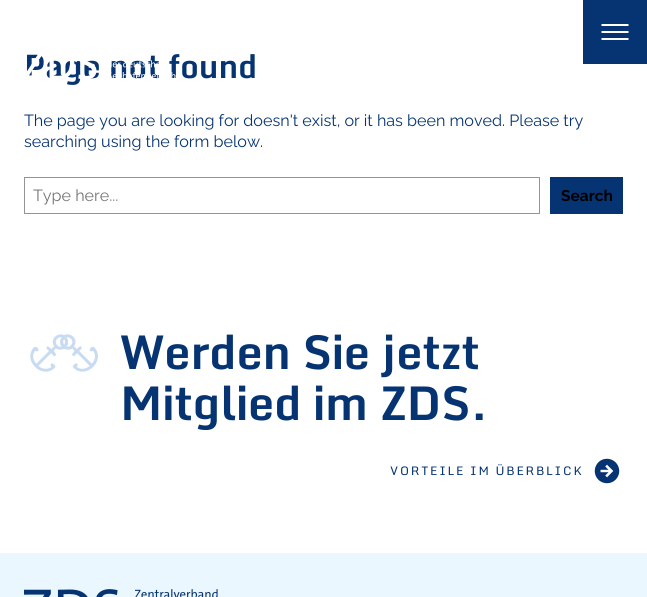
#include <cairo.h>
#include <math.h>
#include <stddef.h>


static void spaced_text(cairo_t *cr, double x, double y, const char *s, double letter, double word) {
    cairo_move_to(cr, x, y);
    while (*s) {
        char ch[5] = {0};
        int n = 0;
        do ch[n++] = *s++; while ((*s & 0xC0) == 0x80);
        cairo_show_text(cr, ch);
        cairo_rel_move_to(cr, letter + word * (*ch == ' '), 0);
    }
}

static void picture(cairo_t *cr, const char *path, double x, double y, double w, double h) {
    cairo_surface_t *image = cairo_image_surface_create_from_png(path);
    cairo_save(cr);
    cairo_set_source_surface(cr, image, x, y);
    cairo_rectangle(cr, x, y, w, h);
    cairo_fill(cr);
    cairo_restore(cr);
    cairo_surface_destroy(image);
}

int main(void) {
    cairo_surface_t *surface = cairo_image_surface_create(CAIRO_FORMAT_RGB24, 647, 597);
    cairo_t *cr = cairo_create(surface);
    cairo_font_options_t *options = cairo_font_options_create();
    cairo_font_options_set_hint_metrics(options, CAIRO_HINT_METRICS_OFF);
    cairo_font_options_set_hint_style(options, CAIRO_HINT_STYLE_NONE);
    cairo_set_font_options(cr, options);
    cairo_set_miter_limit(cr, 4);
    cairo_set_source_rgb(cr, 1, 1, 1);
    cairo_paint(cr);
    cairo_set_source_rgb(cr, 0.024, 0.204, 0.447);
    cairo_rectangle(cr, 583, 0, 64, 64);
    cairo_fill(cr);
    cairo_new_path(cr);
    cairo_move_to(cr, 601.5, 32);
    cairo_line_to(cr, 628.5, 32);
    cairo_move_to(cr, 601.5, 39);
    cairo_line_to(cr, 628.5, 39);
    cairo_move_to(cr, 601.5, 25);
    cairo_line_to(cr, 628.5, 25);
    cairo_set_source_rgb(cr, 1, 1, 1);
    cairo_stroke(cr);
    cairo_select_font_face(cr, "Monda", CAIRO_FONT_SLANT_NORMAL, CAIRO_FONT_WEIGHT_BOLD);
    cairo_set_font_size(cr, 32.25);
    cairo_set_source_rgb(cr, 0.024, 0.204, 0.447);
    cairo_move_to(cr, 24, 78);
    cairo_show_text(cr, "Page not found");
    picture(cr, "img1.png", 27, 54, 149, 25);
    cairo_select_font_face(cr, "Raleway Thin", CAIRO_FONT_SLANT_NORMAL, CAIRO_FONT_WEIGHT_NORMAL);
    cairo_set_font_size(cr, 16.15);
    cairo_move_to(cr, 24, 126);
    cairo_show_text(cr, "The page you are looking for doesn't exist, or it has been moved. Please try");
    cairo_move_to(cr, 24, 147);
    cairo_show_text(cr, "searching using the form below.");
    cairo_rectangle(cr, 24.5, 177.5, 515, 36);
    cairo_set_source_rgb(cr, 0.58, 0.58, 0.58);
    cairo_set_line_width(cr, 1);
    cairo_stroke(cr);
    cairo_set_source_rgb(cr, 0.459, 0.459, 0.459);
    cairo_move_to(cr, 33, 201);
    cairo_show_text(cr, "Type here...");
    cairo_set_source_rgb(cr, 0.024, 0.204, 0.447);
    cairo_rectangle(cr, 550, 177, 73, 37);
    cairo_fill(cr);
    cairo_select_font_face(cr, "Raleway", CAIRO_FONT_SLANT_NORMAL, CAIRO_FONT_WEIGHT_BOLD);
    cairo_set_font_size(cr, 15.5);
    cairo_set_source_rgb(cr, 0, 0, 0);
    cairo_move_to(cr, 561, 201);
    cairo_show_text(cr, "Search");
    picture(cr, "img2.png", 30, 334, 68, 38);
    cairo_select_font_face(cr, "Monda", CAIRO_FONT_SLANT_NORMAL, CAIRO_FONT_WEIGHT_BOLD);
    cairo_set_font_size(cr, 46.5);
    cairo_set_source_rgb(cr, 0.024, 0.204, 0.447);
    cairo_move_to(cr, 120, 369);
    cairo_show_text(cr, "Werden Sie jetzt");
    cairo_move_to(cr, 120, 420);
    cairo_show_text(cr, "Mitglied im ZDS.");
    cairo_select_font_face(cr, "Monda", CAIRO_FONT_SLANT_NORMAL, CAIRO_FONT_WEIGHT_NORMAL);
    cairo_set_font_size(cr, 12);
    spaced_text(cr, 390, 475, "VORTEILE IM ÜBERBLICK", 1.8, 0);
    picture(cr, "img3.png", 594, 458, 26, 26);
    cairo_set_source_rgb(cr, 0.918, 0.965, 0.996);
    cairo_rectangle(cr, 0, 553, 647, 44);
    cairo_fill(cr);
    picture(cr, "img4.png", 24, 589, 194, 8);
    cairo_surface_write_to_png(surface, "page.png");
    cairo_font_options_destroy(options);
    cairo_destroy(cr);
    cairo_surface_destroy(surface);
    return 0;
}
